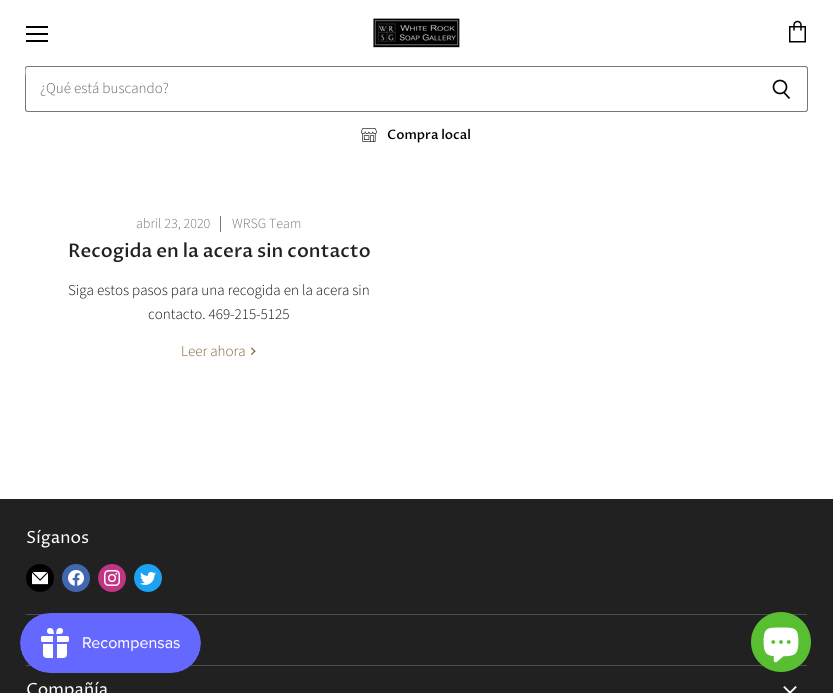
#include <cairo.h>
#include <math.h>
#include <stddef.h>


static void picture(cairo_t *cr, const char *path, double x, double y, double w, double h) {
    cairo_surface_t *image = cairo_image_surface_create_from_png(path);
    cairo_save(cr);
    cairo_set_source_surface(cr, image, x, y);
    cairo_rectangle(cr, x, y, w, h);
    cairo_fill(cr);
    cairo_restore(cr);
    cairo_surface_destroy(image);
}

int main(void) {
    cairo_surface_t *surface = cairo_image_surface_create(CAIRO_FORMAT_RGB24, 833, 693);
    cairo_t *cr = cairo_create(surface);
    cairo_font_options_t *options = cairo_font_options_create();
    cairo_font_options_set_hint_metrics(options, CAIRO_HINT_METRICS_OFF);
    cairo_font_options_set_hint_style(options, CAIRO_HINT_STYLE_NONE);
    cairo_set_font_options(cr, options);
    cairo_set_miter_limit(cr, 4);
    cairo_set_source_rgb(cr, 1, 1, 1);
    cairo_paint(cr);
    cairo_set_source_rgb(cr, 0, 0, 0);
    cairo_rectangle(cr, 26, 26, 22, 2);
    cairo_fill(cr);
    cairo_rectangle(cr, 26, 33, 22, 2);
    cairo_fill(cr);
    cairo_rectangle(cr, 26, 40, 22, 2);
    cairo_fill(cr);
    picture(cr, "img1.png", 789, 20, 17, 23);
    picture(cr, "img2.png", 373, 18, 87, 30);
    cairo_set_source_rgb(cr, 0.467, 0.467, 0.467);
    cairo_set_fill_rule(cr, CAIRO_FILL_RULE_EVEN_ODD);
    cairo_new_path(cr);
    cairo_move_to(cr, 28, 66);
    cairo_line_to(cr, 755, 66);
    cairo_line_to(cr, 755, 112);
    cairo_line_to(cr, 28, 112);
    cairo_curve_to(cr, 26, 112, 25, 111, 25, 109);
    cairo_line_to(cr, 25, 69);
    cairo_curve_to(cr, 25, 67, 26, 66, 28, 66);
    cairo_close_path(cr);
    cairo_move_to(cr, 28, 67);
    cairo_line_to(cr, 755, 67);
    cairo_line_to(cr, 755, 111);
    cairo_line_to(cr, 27, 111);
    cairo_line_to(cr, 26, 109);
    cairo_line_to(cr, 26, 76);
    cairo_curve_to(cr, 26, 75, 24, 67, 28, 67);
    cairo_close_path(cr);
    cairo_fill(cr);
    cairo_select_font_face(cr, "Source Sans Pro Light", CAIRO_FONT_SLANT_NORMAL, CAIRO_FONT_WEIGHT_NORMAL);
    cairo_set_font_size(cr, 15);
    cairo_set_source_rgb(cr, 0.4, 0.4, 0.4);
    cairo_move_to(cr, 40, 93);
    cairo_show_text(cr, "¿Qué está buscando?");
    cairo_set_source_rgb(cr, 0.467, 0.467, 0.467);
    cairo_new_path(cr);
    cairo_move_to(cr, 755, 66);
    cairo_line_to(cr, 805, 66);
    cairo_curve_to(cr, 807, 66, 808, 67, 808, 69);
    cairo_line_to(cr, 808, 109);
    cairo_curve_to(cr, 808, 111, 807, 112, 805, 112);
    cairo_line_to(cr, 755, 112);
    cairo_close_path(cr);
    cairo_move_to(cr, 755, 67);
    cairo_line_to(cr, 805, 67);
    cairo_curve_to(cr, 806, 67, 807, 68, 807, 69);
    cairo_line_to(cr, 807, 109);
    cairo_curve_to(cr, 807, 110, 806, 111, 805, 111);
    cairo_line_to(cr, 755, 111);
    cairo_close_path(cr);
    cairo_fill(cr);
    cairo_new_path(cr);
    cairo_move_to(cr, 789.5, 98.5);
    cairo_line_to(cr, 784, 92.5);
    cairo_set_source_rgb(cr, 0, 0, 0);
    cairo_set_line_width(cr, 1.7);
    cairo_stroke(cr);
    cairo_arc(cr, 780, 87, 6.5, 0, 2 * M_PI);
    cairo_stroke(cr);
    picture(cr, "img3.png", 361, 128, 16, 14);
    cairo_select_font_face(cr, "Proza Libre Medium", CAIRO_FONT_SLANT_NORMAL, CAIRO_FONT_WEIGHT_NORMAL);
    cairo_set_font_size(cr, 13);
    cairo_move_to(cr, 387, 139);
    cairo_show_text(cr, "Compra local");
    cairo_select_font_face(cr, "Source Sans Pro Light", CAIRO_FONT_SLANT_NORMAL, CAIRO_FONT_WEIGHT_NORMAL);
    cairo_set_font_size(cr, 14);
    cairo_set_source_rgb(cr, 0.486, 0.471, 0.451);
    cairo_move_to(cr, 136, 228);
    cairo_show_text(cr, "abril 23, 2020");
    cairo_rectangle(cr, 220, 216, 1, 16);
    cairo_fill(cr);
    cairo_move_to(cr, 232, 228);
    cairo_show_text(cr, "WRSG Team");
    cairo_select_font_face(cr, "Proza Libre Medium", CAIRO_FONT_SLANT_NORMAL, CAIRO_FONT_WEIGHT_NORMAL);
    cairo_set_font_size(cr, 18.75);
    cairo_set_source_rgb(cr, 0.129, 0.129, 0.129);
    cairo_move_to(cr, 68, 257);
    cairo_show_text(cr, "Recogida en la acera sin contacto");
    cairo_select_font_face(cr, "Source Sans Pro Light", CAIRO_FONT_SLANT_NORMAL, CAIRO_FONT_WEIGHT_NORMAL);
    cairo_set_font_size(cr, 15);
    cairo_set_source_rgb(cr, 0.067, 0.067, 0.067);
    cairo_move_to(cr, 68, 295);
    cairo_show_text(cr, "Siga estos pasos para una recogida en la acera sin");
    cairo_move_to(cr, 148, 319);
    cairo_show_text(cr, "contacto. 469-215-5125");
    cairo_set_source_rgb(cr, 0.506, 0.388, 0.224);
    cairo_move_to(cr, 181, 356);
    cairo_show_text(cr, "Leer ahora");
    picture(cr, "img4.png", 251, 347, 5, 8);
    cairo_set_source_rgb(cr, 0.129, 0.129, 0.129);
    cairo_rectangle(cr, 0, 499, 833, 194);
    cairo_fill(cr);
    cairo_set_source_rgb(cr, 0.302, 0.302, 0.302);
    cairo_rectangle(cr, 26, 614, 781, 1);
    cairo_fill(cr);
    cairo_select_font_face(cr, "Proza Libre", CAIRO_FONT_SLANT_NORMAL, CAIRO_FONT_WEIGHT_NORMAL);
    cairo_set_font_size(cr, 16.75);
    cairo_set_source_rgb(cr, 1, 1, 1);
    cairo_move_to(cr, 26, 543);
    cairo_show_text(cr, "Síganos");
    cairo_set_source_rgb(cr, 0, 0, 0);
    cairo_new_path(cr);
    cairo_arc(cr, 40, 578, 14, 0, 2 * M_PI);
    cairo_fill(cr);
    picture(cr, "img5.png", 32, 572, 16, 13);
    cairo_set_source_rgb(cr, 0.259, 0.404, 0.694);
    cairo_arc(cr, 76, 578, 14, 0, 2 * M_PI);
    cairo_fill(cr);
    picture(cr, "img6.png", 68, 570, 16, 16);
    cairo_set_source_rgb(cr, 0.757, 0.208, 0.518);
    cairo_arc(cr, 112, 578, 14, 0, 2 * M_PI);
    cairo_fill(cr);
    picture(cr, "img7.png", 104, 570, 16, 16);
    cairo_set_source_rgb(cr, 0.114, 0.631, 0.949);
    cairo_arc(cr, 148, 578, 14, 0, 2 * M_PI);
    cairo_fill(cr);
    picture(cr, "img8.png", 140, 572, 16, 13);
    cairo_set_source_rgb(cr, 0.302, 0.302, 0.302);
    cairo_rectangle(cr, 26, 665, 781, 1);
    cairo_fill(cr);
    cairo_set_source_rgb(cr, 1, 1, 1);
    cairo_move_to(cr, 26, 695);
    cairo_show_text(cr, "Compañía");
    picture(cr, "img9.png", 783, 686, 14, 7);
    cairo_set_source_rgb(cr, 0.345, 0.749, 0.196);
    cairo_arc(cr, 781, 642, 30, 0, 2 * M_PI);
    cairo_fill(cr);
    picture(cr, "img10.png", 763, 627, 36, 36);
    picture(cr, "img11.png", 20, 613, 181, 60);
    cairo_surface_write_to_png(surface, "page.png");
    cairo_font_options_destroy(options);
    cairo_destroy(cr);
    cairo_surface_destroy(surface);
    return 0;
}
